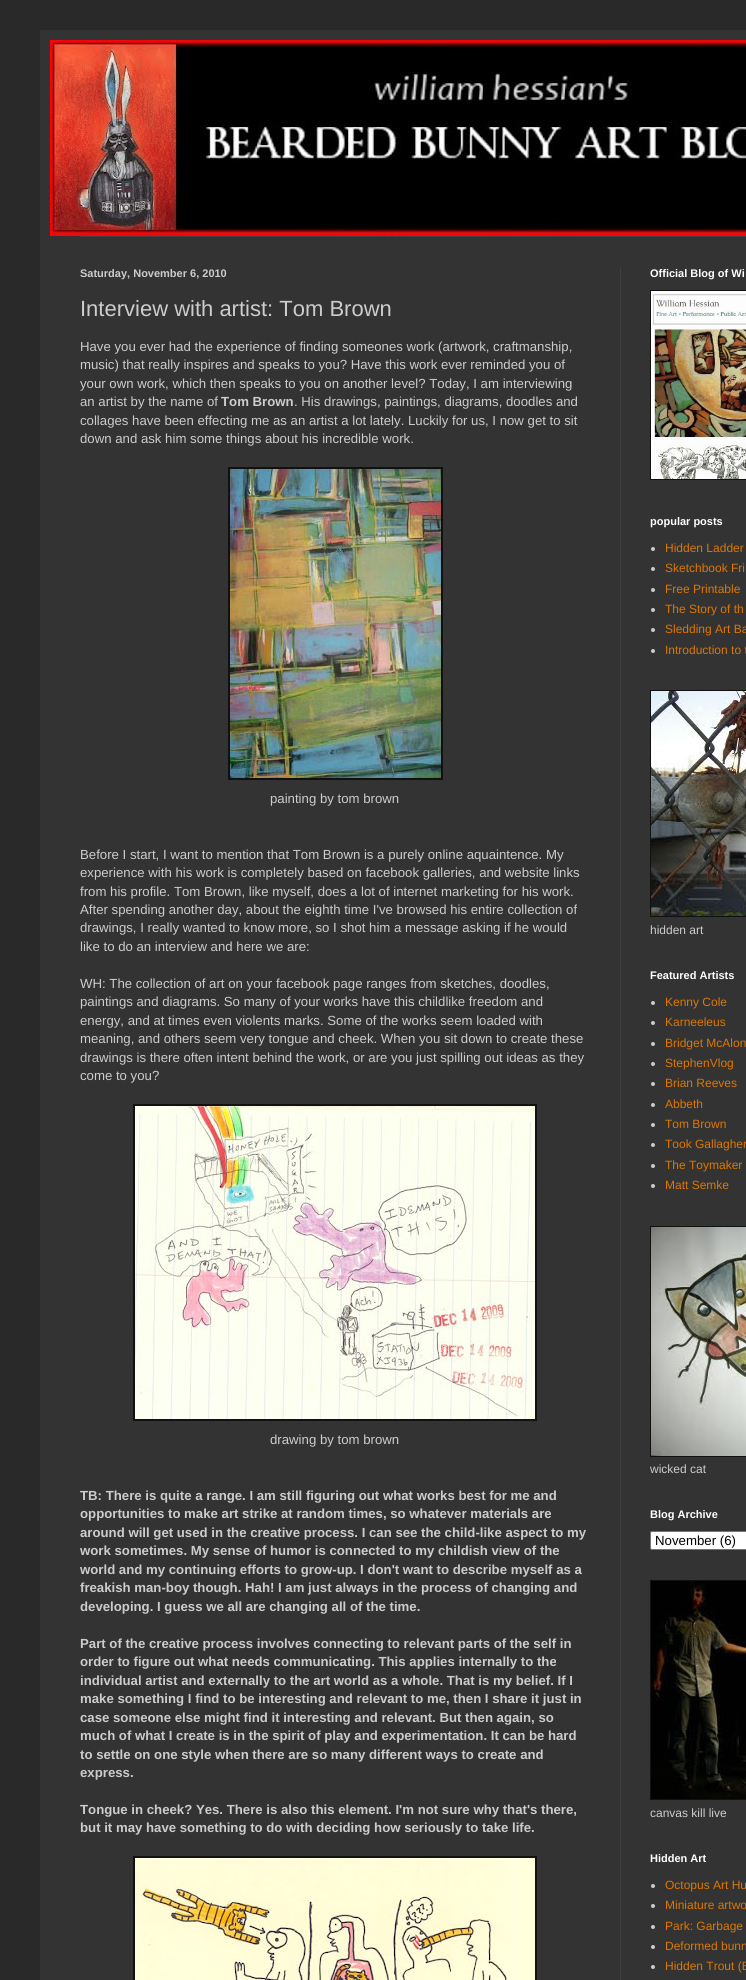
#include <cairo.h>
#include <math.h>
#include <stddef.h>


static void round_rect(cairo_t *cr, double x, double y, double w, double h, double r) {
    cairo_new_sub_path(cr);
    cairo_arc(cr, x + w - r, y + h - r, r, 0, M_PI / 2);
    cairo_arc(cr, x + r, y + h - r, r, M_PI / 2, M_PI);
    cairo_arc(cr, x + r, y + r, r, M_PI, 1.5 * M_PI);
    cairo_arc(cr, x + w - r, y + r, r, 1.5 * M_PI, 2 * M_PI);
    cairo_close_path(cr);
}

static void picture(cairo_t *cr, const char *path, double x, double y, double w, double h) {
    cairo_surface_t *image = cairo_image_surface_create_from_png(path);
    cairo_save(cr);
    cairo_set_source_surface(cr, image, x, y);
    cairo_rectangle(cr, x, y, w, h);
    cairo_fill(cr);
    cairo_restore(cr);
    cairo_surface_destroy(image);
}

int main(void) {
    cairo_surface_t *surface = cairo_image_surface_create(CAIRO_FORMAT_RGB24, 746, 1980);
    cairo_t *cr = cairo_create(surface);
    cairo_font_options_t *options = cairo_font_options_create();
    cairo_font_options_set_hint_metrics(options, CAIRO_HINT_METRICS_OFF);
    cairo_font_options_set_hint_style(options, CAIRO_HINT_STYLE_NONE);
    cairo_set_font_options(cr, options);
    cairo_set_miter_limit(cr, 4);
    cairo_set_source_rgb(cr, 0.161, 0.161, 0.161);
    cairo_paint(cr);
    cairo_set_source_rgb(cr, 0.2, 0.2, 0.2);
    cairo_rectangle(cr, 40, 30, 706, 1950);
    cairo_fill(cr);
    picture(cr, "img1.png", 50, 40, 696, 196);
    cairo_set_source_rgb(cr, 0.251, 0.251, 0.251);
    cairo_rectangle(cr, 80, 236, 666, 1);
    cairo_fill(cr);
    cairo_rectangle(cr, 620, 267, 1, 1713);
    cairo_fill(cr);
    cairo_select_font_face(cr, "Liberation Sans", CAIRO_FONT_SLANT_NORMAL, CAIRO_FONT_WEIGHT_BOLD);
    cairo_set_font_size(cr, 11);
    cairo_set_source_rgb(cr, 0.8, 0.8, 0.8);
    cairo_move_to(cr, 80, 277);
    cairo_show_text(cr, "Saturday, November 6, 2010");
    cairo_select_font_face(cr, "Liberation Sans", CAIRO_FONT_SLANT_NORMAL, CAIRO_FONT_WEIGHT_NORMAL);
    cairo_set_font_size(cr, 22);
    cairo_move_to(cr, 80, 316);
    cairo_show_text(cr, "Interview with artist: Tom Brown");
    cairo_set_font_size(cr, 13.2);
    cairo_move_to(cr, 80, 351);
    cairo_show_text(cr, "Have you ever had the experience of finding someones work (artwork, craftmanship,");
    cairo_move_to(cr, 80, 369);
    cairo_show_text(cr, "music) that really inspires and speaks to you? Have this work ever reminded you of");
    cairo_move_to(cr, 80, 388);
    cairo_show_text(cr, "your own work, which then speaks to you on another level? Today, I am interviewing");
    cairo_move_to(cr, 80, 406);
    cairo_show_text(cr, "an artist by the name of");
    cairo_select_font_face(cr, "Liberation Sans", CAIRO_FONT_SLANT_NORMAL, CAIRO_FONT_WEIGHT_BOLD);
    cairo_move_to(cr, 221, 406);
    cairo_show_text(cr, "Tom Brown");
    cairo_select_font_face(cr, "Liberation Sans", CAIRO_FONT_SLANT_NORMAL, CAIRO_FONT_WEIGHT_NORMAL);
    cairo_move_to(cr, 294, 406);
    cairo_show_text(cr, ". His drawings, paintings, diagrams, doodles and");
    cairo_move_to(cr, 80, 425);
    cairo_show_text(cr, "collages have been effecting me as an artist a lot lately. Luckily for us, I now get to sit");
    cairo_move_to(cr, 80, 443);
    cairo_show_text(cr, "down and ask him some things about his incredible work.");
    cairo_set_source_rgb(cr, 0.067, 0.067, 0.067);
    cairo_rectangle(cr, 228, 467, 215, 313);
    cairo_fill(cr);
    picture(cr, "img2.png", 230, 469, 211, 309);
    cairo_set_source_rgb(cr, 0.8, 0.8, 0.8);
    cairo_move_to(cr, 270, 803);
    cairo_show_text(cr, "painting by tom brown");
    cairo_move_to(cr, 80, 859);
    cairo_show_text(cr, "Before I start, I want to mention that Tom Brown is a purely online aquaintence. My");
    cairo_move_to(cr, 80, 877);
    cairo_show_text(cr, "experience with his work is completely based on facebook galleries, and website links");
    cairo_move_to(cr, 80, 896);
    cairo_show_text(cr, "from his profile. Tom Brown, like myself, does a lot of internet marketing for his work.");
    cairo_move_to(cr, 80, 914);
    cairo_show_text(cr, "After spending another day, about the eighth time I've browsed his entire collection of");
    cairo_move_to(cr, 80, 932);
    cairo_show_text(cr, "drawings, I really wanted to know more, so I shot him a message asking if he would");
    cairo_move_to(cr, 80, 951);
    cairo_show_text(cr, "like to do an interview and here we are:");
    cairo_move_to(cr, 80, 988);
    cairo_show_text(cr, "WH: The collection of art on your facebook page ranges from sketches, doodles,");
    cairo_move_to(cr, 80, 1006);
    cairo_show_text(cr, "paintings and diagrams. So many of your works have this childlike freedom and");
    cairo_move_to(cr, 80, 1025);
    cairo_show_text(cr, "energy, and at times even violents marks. Some of the works seem loaded with");
    cairo_move_to(cr, 80, 1043);
    cairo_show_text(cr, "meaning, and others seem very tongue and cheek. When you sit down to create these");
    cairo_move_to(cr, 80, 1062);
    cairo_show_text(cr, "drawings is there often intent behind the work, or are you just spilling out ideas as they");
    cairo_move_to(cr, 80, 1080);
    cairo_show_text(cr, "come to you?");
    cairo_set_source_rgb(cr, 0.067, 0.067, 0.067);
    cairo_rectangle(cr, 133, 1104, 404, 317);
    cairo_fill(cr);
    picture(cr, "img3.png", 135, 1106, 400, 313);
    cairo_set_source_rgb(cr, 0.8, 0.8, 0.8);
    cairo_move_to(cr, 270, 1444);
    cairo_show_text(cr, "drawing by tom brown");
    cairo_select_font_face(cr, "Liberation Sans", CAIRO_FONT_SLANT_NORMAL, CAIRO_FONT_WEIGHT_BOLD);
    cairo_move_to(cr, 80, 1500);
    cairo_show_text(cr, "TB: There is quite a range. I am still figuring out what works best for me and");
    cairo_move_to(cr, 80, 1518);
    cairo_show_text(cr, "opportunities to make art strike at random times, so whatever materials are");
    cairo_move_to(cr, 80, 1537);
    cairo_show_text(cr, "around will get used in the creative process. I can see the child-like aspect to my");
    cairo_move_to(cr, 80, 1555);
    cairo_show_text(cr, "work sometimes. My sense of humor is connected to my childish view of the");
    cairo_move_to(cr, 80, 1574);
    cairo_show_text(cr, "world and my continuing efforts to grow-up. I don't want to describe myself as a");
    cairo_move_to(cr, 80, 1592);
    cairo_show_text(cr, "freakish man-boy though. Hah! I am just always in the process of changing and");
    cairo_move_to(cr, 80, 1611);
    cairo_show_text(cr, "developing. I guess we all are changing all of the time.");
    cairo_move_to(cr, 80, 1648);
    cairo_show_text(cr, "Part of the creative process involves connecting to relevant parts of the self in");
    cairo_move_to(cr, 80, 1666);
    cairo_show_text(cr, "order to figure out what needs communicating. This applies internally to the");
    cairo_move_to(cr, 80, 1685);
    cairo_show_text(cr, "individual artist and externally to the art world as a whole. That is my belief. If I");
    cairo_move_to(cr, 80, 1703);
    cairo_show_text(cr, "make something I find to be interesting and relevant to me, then I share it just in");
    cairo_move_to(cr, 80, 1722);
    cairo_show_text(cr, "case someone else might find it interesting and relevant. But then again, so");
    cairo_move_to(cr, 80, 1740);
    cairo_show_text(cr, "much of what I create is in the spirit of play and experimentation. It can be hard");
    cairo_move_to(cr, 80, 1759);
    cairo_show_text(cr, "to settle on one style when there are so many different ways to create and");
    cairo_move_to(cr, 80, 1777);
    cairo_show_text(cr, "express.");
    cairo_move_to(cr, 80, 1814);
    cairo_show_text(cr, "Tongue in cheek? Yes. There is also this element. I'm not sure why that's there,");
    cairo_move_to(cr, 80, 1832);
    cairo_show_text(cr, "but it may have something to do with deciding how seriously to take life.");
    cairo_set_source_rgb(cr, 0.067, 0.067, 0.067);
    cairo_rectangle(cr, 133, 1856, 404, 124);
    cairo_fill(cr);
    picture(cr, "img4.png", 135, 1858, 400, 122);
    cairo_set_font_size(cr, 11);
    cairo_set_source_rgb(cr, 1, 1, 1);
    cairo_move_to(cr, 650, 277);
    cairo_show_text(cr, "Official Blog of Wi");
    cairo_set_source_rgb(cr, 0.067, 0.067, 0.067);
    cairo_rectangle(cr, 650, 290, 96, 190);
    cairo_fill(cr);
    picture(cr, "img5.png", 651, 291, 95, 188);
    cairo_set_source_rgb(cr, 1, 1, 1);
    cairo_move_to(cr, 650, 525);
    cairo_show_text(cr, "popular posts");
    cairo_set_source_rgb(cr, 0.8, 0.8, 0.8);
    cairo_new_path(cr);
    cairo_arc(cr, 653, 549, 2, 0, 2 * M_PI);
    cairo_fill(cr);
    cairo_select_font_face(cr, "Liberation Sans", CAIRO_FONT_SLANT_NORMAL, CAIRO_FONT_WEIGHT_NORMAL);
    cairo_set_font_size(cr, 12);
    cairo_set_source_rgb(cr, 0.867, 0.467, 0);
    cairo_move_to(cr, 665, 552);
    cairo_show_text(cr, "Hidden Ladder");
    cairo_set_source_rgb(cr, 0.8, 0.8, 0.8);
    cairo_new_path(cr);
    cairo_arc(cr, 653, 569, 2, 0, 2 * M_PI);
    cairo_fill(cr);
    cairo_set_source_rgb(cr, 0.867, 0.467, 0);
    cairo_move_to(cr, 665, 572);
    cairo_show_text(cr, "Sketchbook Fri");
    cairo_set_source_rgb(cr, 0.8, 0.8, 0.8);
    cairo_new_path(cr);
    cairo_arc(cr, 653, 590, 2, 0, 2 * M_PI);
    cairo_fill(cr);
    cairo_set_source_rgb(cr, 0.867, 0.467, 0);
    cairo_move_to(cr, 665, 593);
    cairo_show_text(cr, "Free Printable");
    cairo_set_source_rgb(cr, 0.8, 0.8, 0.8);
    cairo_new_path(cr);
    cairo_arc(cr, 653, 610, 2, 0, 2 * M_PI);
    cairo_fill(cr);
    cairo_set_source_rgb(cr, 0.867, 0.467, 0);
    cairo_move_to(cr, 665, 613);
    cairo_show_text(cr, "The Story of th");
    cairo_set_source_rgb(cr, 0.8, 0.8, 0.8);
    cairo_new_path(cr);
    cairo_arc(cr, 653, 630, 2, 0, 2 * M_PI);
    cairo_fill(cr);
    cairo_set_source_rgb(cr, 0.867, 0.467, 0);
    cairo_move_to(cr, 665, 633);
    cairo_show_text(cr, "Sledding Art Ba");
    cairo_set_source_rgb(cr, 0.8, 0.8, 0.8);
    cairo_new_path(cr);
    cairo_arc(cr, 653, 651, 2, 0, 2 * M_PI);
    cairo_fill(cr);
    cairo_set_source_rgb(cr, 0.867, 0.467, 0);
    cairo_move_to(cr, 665, 654);
    cairo_show_text(cr, "Introduction to t");
    cairo_set_source_rgb(cr, 0.067, 0.067, 0.067);
    cairo_rectangle(cr, 650, 690, 96, 227);
    cairo_fill(cr);
    picture(cr, "img6.png", 651, 691, 95, 225);
    cairo_set_source_rgb(cr, 0.8, 0.8, 0.8);
    cairo_move_to(cr, 650, 934);
    cairo_show_text(cr, "hidden art");
    cairo_select_font_face(cr, "Liberation Sans", CAIRO_FONT_SLANT_NORMAL, CAIRO_FONT_WEIGHT_BOLD);
    cairo_set_font_size(cr, 11);
    cairo_set_source_rgb(cr, 1, 1, 1);
    cairo_move_to(cr, 650, 979);
    cairo_show_text(cr, "Featured Artists");
    cairo_set_source_rgb(cr, 0.8, 0.8, 0.8);
    cairo_new_path(cr);
    cairo_arc(cr, 653, 1003, 2, 0, 2 * M_PI);
    cairo_fill(cr);
    cairo_select_font_face(cr, "Liberation Sans", CAIRO_FONT_SLANT_NORMAL, CAIRO_FONT_WEIGHT_NORMAL);
    cairo_set_font_size(cr, 12);
    cairo_set_source_rgb(cr, 0.867, 0.467, 0);
    cairo_move_to(cr, 665, 1006);
    cairo_show_text(cr, "Kenny Cole");
    cairo_set_source_rgb(cr, 0.8, 0.8, 0.8);
    cairo_new_path(cr);
    cairo_arc(cr, 653, 1023, 2, 0, 2 * M_PI);
    cairo_fill(cr);
    cairo_set_source_rgb(cr, 0.867, 0.467, 0);
    cairo_move_to(cr, 665, 1026);
    cairo_show_text(cr, "Karneeleus");
    cairo_set_source_rgb(cr, 0.8, 0.8, 0.8);
    cairo_new_path(cr);
    cairo_arc(cr, 653, 1044, 2, 0, 2 * M_PI);
    cairo_fill(cr);
    cairo_set_source_rgb(cr, 0.867, 0.467, 0);
    cairo_move_to(cr, 665, 1047);
    cairo_show_text(cr, "Bridget McAlon");
    cairo_set_source_rgb(cr, 0.8, 0.8, 0.8);
    cairo_new_path(cr);
    cairo_arc(cr, 653, 1064, 2, 0, 2 * M_PI);
    cairo_fill(cr);
    cairo_set_source_rgb(cr, 0.867, 0.467, 0);
    cairo_move_to(cr, 665, 1067);
    cairo_show_text(cr, "StephenVlog");
    cairo_set_source_rgb(cr, 0.8, 0.8, 0.8);
    cairo_new_path(cr);
    cairo_arc(cr, 653, 1084, 2, 0, 2 * M_PI);
    cairo_fill(cr);
    cairo_set_source_rgb(cr, 0.867, 0.467, 0);
    cairo_move_to(cr, 665, 1087);
    cairo_show_text(cr, "Brian Reeves");
    cairo_set_source_rgb(cr, 0.8, 0.8, 0.8);
    cairo_new_path(cr);
    cairo_arc(cr, 653, 1105, 2, 0, 2 * M_PI);
    cairo_fill(cr);
    cairo_set_source_rgb(cr, 0.867, 0.467, 0);
    cairo_move_to(cr, 665, 1108);
    cairo_show_text(cr, "Abbeth");
    cairo_set_source_rgb(cr, 0.8, 0.8, 0.8);
    cairo_new_path(cr);
    cairo_arc(cr, 653, 1125, 2, 0, 2 * M_PI);
    cairo_fill(cr);
    cairo_set_source_rgb(cr, 0.867, 0.467, 0);
    cairo_move_to(cr, 665, 1128);
    cairo_show_text(cr, "Tom Brown");
    cairo_set_source_rgb(cr, 0.8, 0.8, 0.8);
    cairo_new_path(cr);
    cairo_arc(cr, 653, 1145, 2, 0, 2 * M_PI);
    cairo_fill(cr);
    cairo_set_source_rgb(cr, 0.867, 0.467, 0);
    cairo_move_to(cr, 665, 1148);
    cairo_show_text(cr, "Took Gallagher");
    cairo_set_source_rgb(cr, 0.8, 0.8, 0.8);
    cairo_new_path(cr);
    cairo_arc(cr, 653, 1166, 2, 0, 2 * M_PI);
    cairo_fill(cr);
    cairo_set_source_rgb(cr, 0.867, 0.467, 0);
    cairo_move_to(cr, 665, 1169);
    cairo_show_text(cr, "The Toymaker");
    cairo_set_source_rgb(cr, 0.8, 0.8, 0.8);
    cairo_new_path(cr);
    cairo_arc(cr, 653, 1186, 2, 0, 2 * M_PI);
    cairo_fill(cr);
    cairo_set_source_rgb(cr, 0.867, 0.467, 0);
    cairo_move_to(cr, 665, 1189);
    cairo_show_text(cr, "Matt Semke");
    cairo_set_source_rgb(cr, 0.067, 0.067, 0.067);
    cairo_rectangle(cr, 650, 1226, 96, 231);
    cairo_fill(cr);
    picture(cr, "img7.png", 651, 1227, 95, 229);
    cairo_set_source_rgb(cr, 0.8, 0.8, 0.8);
    cairo_move_to(cr, 650, 1473);
    cairo_show_text(cr, "wicked cat");
    cairo_select_font_face(cr, "Liberation Sans", CAIRO_FONT_SLANT_NORMAL, CAIRO_FONT_WEIGHT_BOLD);
    cairo_set_font_size(cr, 11);
    cairo_set_source_rgb(cr, 1, 1, 1);
    cairo_move_to(cr, 650, 1518);
    cairo_show_text(cr, "Blog Archive");
    round_rect(cr, 650.5, 1531.5, 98, 18, 1.5);
    cairo_fill_preserve(cr);
    cairo_set_source_rgb(cr, 0.463, 0.463, 0.463);
    cairo_set_line_width(cr, 1);
    cairo_stroke(cr);
    cairo_select_font_face(cr, "Liberation Sans", CAIRO_FONT_SLANT_NORMAL, CAIRO_FONT_WEIGHT_NORMAL);
    cairo_set_font_size(cr, 13.25);
    cairo_set_source_rgb(cr, 0, 0, 0);
    cairo_move_to(cr, 655, 1545);
    cairo_show_text(cr, "November (6)");
    cairo_set_source_rgb(cr, 0.067, 0.067, 0.067);
    cairo_rectangle(cr, 650, 1580, 96, 220);
    cairo_fill(cr);
    picture(cr, "img8.png", 651, 1581, 95, 218);
    cairo_set_font_size(cr, 12);
    cairo_set_source_rgb(cr, 0.8, 0.8, 0.8);
    cairo_move_to(cr, 650, 1817);
    cairo_show_text(cr, "canvas kill live");
    cairo_select_font_face(cr, "Liberation Sans", CAIRO_FONT_SLANT_NORMAL, CAIRO_FONT_WEIGHT_BOLD);
    cairo_set_font_size(cr, 11);
    cairo_set_source_rgb(cr, 1, 1, 1);
    cairo_move_to(cr, 650, 1862);
    cairo_show_text(cr, "Hidden Art");
    cairo_set_source_rgb(cr, 0.8, 0.8, 0.8);
    cairo_new_path(cr);
    cairo_arc(cr, 653, 1886, 2, 0, 2 * M_PI);
    cairo_fill(cr);
    cairo_select_font_face(cr, "Liberation Sans", CAIRO_FONT_SLANT_NORMAL, CAIRO_FONT_WEIGHT_NORMAL);
    cairo_set_font_size(cr, 12);
    cairo_set_source_rgb(cr, 0.867, 0.467, 0);
    cairo_move_to(cr, 665, 1889);
    cairo_show_text(cr, "Octopus Art Hu");
    cairo_set_source_rgb(cr, 0.8, 0.8, 0.8);
    cairo_new_path(cr);
    cairo_arc(cr, 653, 1906, 2, 0, 2 * M_PI);
    cairo_fill(cr);
    cairo_set_source_rgb(cr, 0.867, 0.467, 0);
    cairo_move_to(cr, 665, 1909);
    cairo_show_text(cr, "Miniature artwo");
    cairo_set_source_rgb(cr, 0.8, 0.8, 0.8);
    cairo_new_path(cr);
    cairo_arc(cr, 653, 1927, 2, 0, 2 * M_PI);
    cairo_fill(cr);
    cairo_set_source_rgb(cr, 0.867, 0.467, 0);
    cairo_move_to(cr, 665, 1930);
    cairo_show_text(cr, "Park: Garbage");
    cairo_set_source_rgb(cr, 0.8, 0.8, 0.8);
    cairo_new_path(cr);
    cairo_arc(cr, 653, 1947, 2, 0, 2 * M_PI);
    cairo_fill(cr);
    cairo_set_source_rgb(cr, 0.867, 0.467, 0);
    cairo_move_to(cr, 665, 1950);
    cairo_show_text(cr, "Deformed bunn");
    cairo_set_source_rgb(cr, 0.8, 0.8, 0.8);
    cairo_new_path(cr);
    cairo_arc(cr, 653, 1967, 2, 0, 2 * M_PI);
    cairo_fill(cr);
    cairo_set_source_rgb(cr, 0.867, 0.467, 0);
    cairo_move_to(cr, 665, 1970);
    cairo_show_text(cr, "Hidden Trout (B");
    cairo_surface_write_to_png(surface, "page.png");
    cairo_font_options_destroy(options);
    cairo_destroy(cr);
    cairo_surface_destroy(surface);
    return 0;
}
